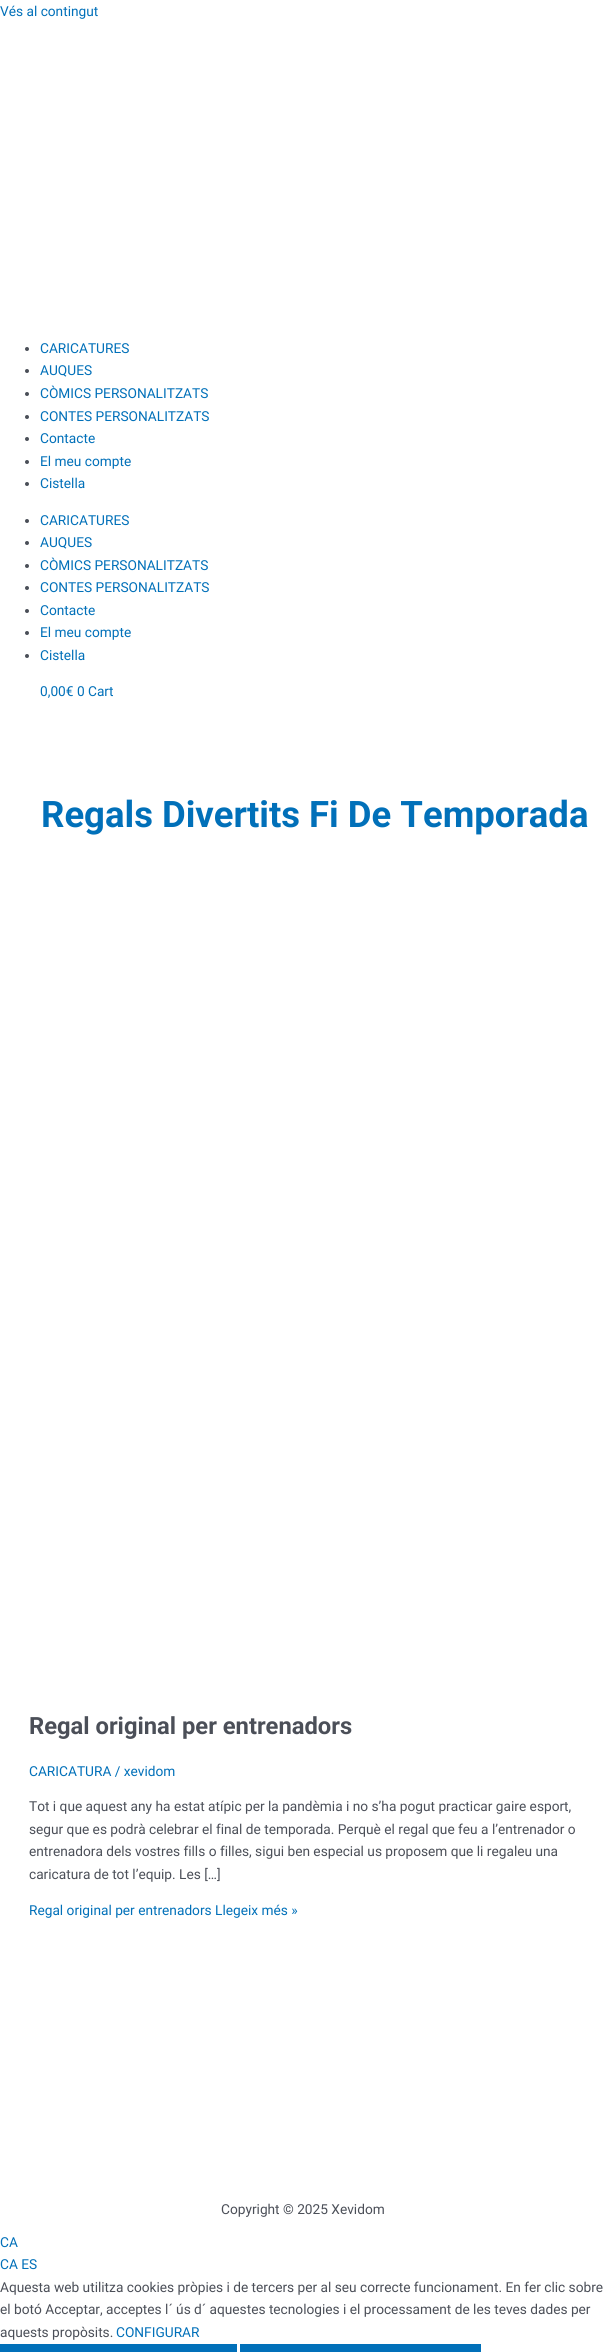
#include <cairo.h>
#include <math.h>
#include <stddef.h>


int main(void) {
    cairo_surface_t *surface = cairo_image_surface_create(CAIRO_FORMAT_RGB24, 606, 2352);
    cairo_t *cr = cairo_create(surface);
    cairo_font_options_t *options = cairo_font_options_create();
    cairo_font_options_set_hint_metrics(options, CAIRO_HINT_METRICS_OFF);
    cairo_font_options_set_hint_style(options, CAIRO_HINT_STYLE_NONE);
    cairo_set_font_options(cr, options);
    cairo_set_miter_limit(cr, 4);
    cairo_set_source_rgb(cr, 1, 1, 1);
    cairo_paint(cr);
    cairo_select_font_face(cr, "Roboto", CAIRO_FONT_SLANT_NORMAL, CAIRO_FONT_WEIGHT_NORMAL);
    cairo_set_font_size(cr, 13.7);
    cairo_set_source_rgb(cr, 0.004, 0.439, 0.725);
    cairo_move_to(cr, 0, 16);
    cairo_show_text(cr, "Vés al contingut");
    cairo_set_source_rgb(cr, 0.294, 0.31, 0.345);
    cairo_new_path(cr);
    cairo_arc(cr, 27, 349, 2, 0, 2 * M_PI);
    cairo_fill(cr);
    cairo_set_source_rgb(cr, 0.004, 0.439, 0.725);
    cairo_move_to(cr, 40, 353);
    cairo_show_text(cr, "CARICATURES");
    cairo_set_source_rgb(cr, 0.294, 0.31, 0.345);
    cairo_new_path(cr);
    cairo_arc(cr, 27, 371, 2, 0, 2 * M_PI);
    cairo_fill(cr);
    cairo_set_source_rgb(cr, 0.004, 0.439, 0.725);
    cairo_move_to(cr, 40, 375);
    cairo_show_text(cr, "AUQUES");
    cairo_set_source_rgb(cr, 0.294, 0.31, 0.345);
    cairo_new_path(cr);
    cairo_arc(cr, 27, 394, 2, 0, 2 * M_PI);
    cairo_fill(cr);
    cairo_set_source_rgb(cr, 0.004, 0.439, 0.725);
    cairo_move_to(cr, 40, 398);
    cairo_show_text(cr, "CÒMICS PERSONALITZATS");
    cairo_set_source_rgb(cr, 0.294, 0.31, 0.345);
    cairo_new_path(cr);
    cairo_arc(cr, 27, 417, 2, 0, 2 * M_PI);
    cairo_fill(cr);
    cairo_set_source_rgb(cr, 0.004, 0.439, 0.725);
    cairo_move_to(cr, 40, 421);
    cairo_show_text(cr, "CONTES PERSONALITZATS");
    cairo_set_source_rgb(cr, 0.294, 0.31, 0.345);
    cairo_new_path(cr);
    cairo_arc(cr, 27, 439, 2, 0, 2 * M_PI);
    cairo_fill(cr);
    cairo_set_source_rgb(cr, 0.004, 0.439, 0.725);
    cairo_move_to(cr, 40, 443);
    cairo_show_text(cr, "Contacte");
    cairo_set_source_rgb(cr, 0.294, 0.31, 0.345);
    cairo_new_path(cr);
    cairo_arc(cr, 27, 462, 2, 0, 2 * M_PI);
    cairo_fill(cr);
    cairo_set_source_rgb(cr, 0.004, 0.439, 0.725);
    cairo_move_to(cr, 40, 466);
    cairo_show_text(cr, "El meu compte");
    cairo_set_source_rgb(cr, 0.294, 0.31, 0.345);
    cairo_new_path(cr);
    cairo_arc(cr, 27, 484, 2, 0, 2 * M_PI);
    cairo_fill(cr);
    cairo_set_source_rgb(cr, 0.004, 0.439, 0.725);
    cairo_move_to(cr, 40, 488);
    cairo_show_text(cr, "Cistella");
    cairo_set_source_rgb(cr, 0.294, 0.31, 0.345);
    cairo_new_path(cr);
    cairo_arc(cr, 27, 521, 2, 0, 2 * M_PI);
    cairo_fill(cr);
    cairo_set_source_rgb(cr, 0.004, 0.439, 0.725);
    cairo_move_to(cr, 40, 525);
    cairo_show_text(cr, "CARICATURES");
    cairo_set_source_rgb(cr, 0.294, 0.31, 0.345);
    cairo_new_path(cr);
    cairo_arc(cr, 27, 543, 2, 0, 2 * M_PI);
    cairo_fill(cr);
    cairo_set_source_rgb(cr, 0.004, 0.439, 0.725);
    cairo_move_to(cr, 40, 547);
    cairo_show_text(cr, "AUQUES");
    cairo_set_source_rgb(cr, 0.294, 0.31, 0.345);
    cairo_new_path(cr);
    cairo_arc(cr, 27, 566, 2, 0, 2 * M_PI);
    cairo_fill(cr);
    cairo_set_source_rgb(cr, 0.004, 0.439, 0.725);
    cairo_move_to(cr, 40, 570);
    cairo_show_text(cr, "CÒMICS PERSONALITZATS");
    cairo_set_source_rgb(cr, 0.294, 0.31, 0.345);
    cairo_new_path(cr);
    cairo_arc(cr, 27, 588, 2, 0, 2 * M_PI);
    cairo_fill(cr);
    cairo_set_source_rgb(cr, 0.004, 0.439, 0.725);
    cairo_move_to(cr, 40, 592);
    cairo_show_text(cr, "CONTES PERSONALITZATS");
    cairo_set_source_rgb(cr, 0.294, 0.31, 0.345);
    cairo_new_path(cr);
    cairo_arc(cr, 27, 611, 2, 0, 2 * M_PI);
    cairo_fill(cr);
    cairo_set_source_rgb(cr, 0.004, 0.439, 0.725);
    cairo_move_to(cr, 40, 615);
    cairo_show_text(cr, "Contacte");
    cairo_set_source_rgb(cr, 0.294, 0.31, 0.345);
    cairo_new_path(cr);
    cairo_arc(cr, 27, 633, 2, 0, 2 * M_PI);
    cairo_fill(cr);
    cairo_set_source_rgb(cr, 0.004, 0.439, 0.725);
    cairo_move_to(cr, 40, 637);
    cairo_show_text(cr, "El meu compte");
    cairo_set_source_rgb(cr, 0.294, 0.31, 0.345);
    cairo_new_path(cr);
    cairo_arc(cr, 27, 656, 2, 0, 2 * M_PI);
    cairo_fill(cr);
    cairo_set_source_rgb(cr, 0.004, 0.439, 0.725);
    cairo_move_to(cr, 40, 660);
    cairo_show_text(cr, "Cistella");
    cairo_move_to(cr, 40, 696);
    cairo_show_text(cr, "0,00€ 0 Cart");
    cairo_select_font_face(cr, "Roboto", CAIRO_FONT_SLANT_NORMAL, CAIRO_FONT_WEIGHT_BOLD);
    cairo_set_font_size(cr, 36.5);
    cairo_move_to(cr, 41, 827);
    cairo_show_text(cr, "Regals Divertits Fi De Temporada");
    cairo_set_font_size(cr, 23.75);
    cairo_set_source_rgb(cr, 0.294, 0.31, 0.345);
    cairo_move_to(cr, 29, 1734);
    cairo_show_text(cr, "Regal original per entrenadors");
    cairo_select_font_face(cr, "Roboto", CAIRO_FONT_SLANT_NORMAL, CAIRO_FONT_WEIGHT_NORMAL);
    cairo_set_font_size(cr, 13.7);
    cairo_set_source_rgb(cr, 0.004, 0.439, 0.725);
    cairo_move_to(cr, 29, 1776);
    cairo_show_text(cr, "CARICATURA / xevidom");
    cairo_set_source_rgb(cr, 0.294, 0.31, 0.345);
    cairo_move_to(cr, 29, 1811);
    cairo_show_text(cr, "Tot i que aquest any ha estat atípic per la pandèmia i no s’ha pogut practicar gaire esport,");
    cairo_move_to(cr, 29, 1834);
    cairo_show_text(cr, "segur que es podrà celebrar el final de temporada. Perquè el regal que feu a l’entrenador o");
    cairo_move_to(cr, 29, 1856);
    cairo_show_text(cr, "entrenadora dels vostres fills o filles, sigui ben especial us proposem que li regaleu una");
    cairo_move_to(cr, 29, 1879);
    cairo_show_text(cr, "caricatura de tot l’equip. Les […]");
    cairo_set_source_rgb(cr, 0.004, 0.439, 0.725);
    cairo_move_to(cr, 29, 1915);
    cairo_show_text(cr, "Regal original per entrenadors Llegeix més »");
    cairo_set_source_rgb(cr, 0.294, 0.31, 0.345);
    cairo_move_to(cr, 221, 2214);
    cairo_show_text(cr, "Copyright © 2025 Xevidom");
    cairo_set_source_rgb(cr, 0.004, 0.439, 0.725);
    cairo_move_to(cr, 0, 2247);
    cairo_show_text(cr, "CA");
    cairo_move_to(cr, 0, 2269);
    cairo_show_text(cr, "CA ES");
    cairo_set_source_rgb(cr, 0.294, 0.31, 0.345);
    cairo_move_to(cr, 0, 2292);
    cairo_show_text(cr, "Aquesta web utilitza cookies pròpies i de tercers per al seu correcte funcionament. En fer clic sobre");
    cairo_move_to(cr, 0, 2314);
    cairo_show_text(cr, "el botó Acceptar, acceptes l´ ús d´ aquestes tecnologies i el processament de les teves dades per");
    cairo_move_to(cr, 0, 2337);
    cairo_show_text(cr, "aquests propòsits.");
    cairo_set_source_rgb(cr, 0.004, 0.439, 0.725);
    cairo_move_to(cr, 116, 2337);
    cairo_show_text(cr, "CONFIGURAR");
    cairo_rectangle(cr, 0, 2344, 237, 8);
    cairo_fill(cr);
    cairo_rectangle(cr, 240, 2344, 241, 8);
    cairo_fill(cr);
    cairo_surface_write_to_png(surface, "page.png");
    cairo_font_options_destroy(options);
    cairo_destroy(cr);
    cairo_surface_destroy(surface);
    return 0;
}
